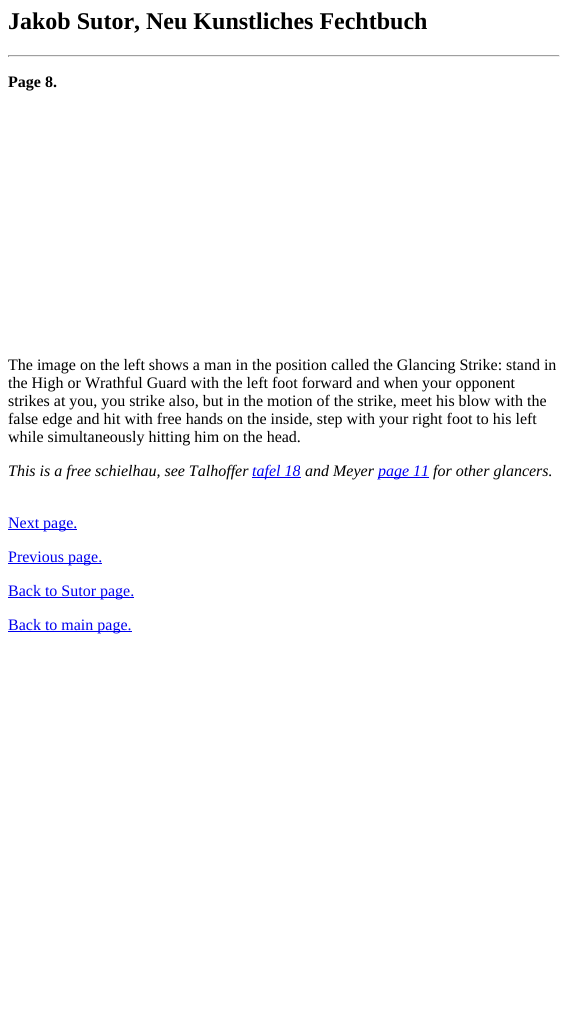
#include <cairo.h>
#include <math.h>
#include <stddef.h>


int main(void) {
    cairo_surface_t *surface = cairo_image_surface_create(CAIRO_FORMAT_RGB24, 566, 1015);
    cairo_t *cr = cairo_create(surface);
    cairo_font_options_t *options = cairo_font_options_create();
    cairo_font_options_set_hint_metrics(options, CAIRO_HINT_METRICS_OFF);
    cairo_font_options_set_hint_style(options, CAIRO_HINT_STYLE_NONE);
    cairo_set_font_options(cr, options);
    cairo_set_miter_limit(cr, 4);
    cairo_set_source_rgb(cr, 1, 1, 1);
    cairo_paint(cr);
    cairo_select_font_face(cr, "Liberation Serif", CAIRO_FONT_SLANT_NORMAL, CAIRO_FONT_WEIGHT_BOLD);
    cairo_set_font_size(cr, 24);
    cairo_set_source_rgb(cr, 0, 0, 0);
    cairo_move_to(cr, 8, 29);
    cairo_show_text(cr, "Jakob Sutor, Neu Kunstliches Fechtbuch");
    cairo_set_source_rgb(cr, 0.624, 0.624, 0.624);
    cairo_rectangle(cr, 8, 55, 552, 1);
    cairo_fill(cr);
    cairo_set_source_rgb(cr, 0.933, 0.933, 0.933);
    cairo_rectangle(cr, 559, 55, 1, 2);
    cairo_fill(cr);
    cairo_rectangle(cr, 8, 56, 552, 1);
    cairo_fill(cr);
    cairo_set_source_rgb(cr, 0.624, 0.624, 0.624);
    cairo_rectangle(cr, 8, 55, 1, 2);
    cairo_fill(cr);
    cairo_set_font_size(cr, 16);
    cairo_set_source_rgb(cr, 0, 0, 0);
    cairo_move_to(cr, 8, 87);
    cairo_show_text(cr, "Page 8.");
    cairo_select_font_face(cr, "Liberation Serif", CAIRO_FONT_SLANT_NORMAL, CAIRO_FONT_WEIGHT_NORMAL);
    cairo_move_to(cr, 8, 370);
    cairo_show_text(cr, "The image on the left shows a man in the position called the Glancing Strike: stand in");
    cairo_move_to(cr, 8, 388);
    cairo_show_text(cr, "the High or Wrathful Guard with the left foot forward and when your opponent");
    cairo_move_to(cr, 8, 406);
    cairo_show_text(cr, "strikes at you, you strike also, but in the motion of the strike, meet his blow with the");
    cairo_move_to(cr, 8, 424);
    cairo_show_text(cr, "false edge and hit with free hands on the inside, step with your right foot to his left");
    cairo_move_to(cr, 8, 442);
    cairo_show_text(cr, "while simultaneously hitting him on the head.");
    cairo_select_font_face(cr, "Liberation Serif", CAIRO_FONT_SLANT_ITALIC, CAIRO_FONT_WEIGHT_NORMAL);
    cairo_move_to(cr, 8, 476);
    cairo_show_text(cr, "This is a free schielhau, see Talhoffer");
    cairo_set_source_rgb(cr, 0, 0, 0.933);
    cairo_rectangle(cr, 252, 477, 49, 1);
    cairo_fill(cr);
    cairo_move_to(cr, 252, 476);
    cairo_show_text(cr, "tafel 18");
    cairo_set_source_rgb(cr, 0, 0, 0);
    cairo_move_to(cr, 305, 476);
    cairo_show_text(cr, "and Meyer");
    cairo_set_source_rgb(cr, 0, 0, 0.933);
    cairo_rectangle(cr, 378, 477, 51, 1);
    cairo_fill(cr);
    cairo_move_to(cr, 378, 476);
    cairo_show_text(cr, "page 11");
    cairo_set_source_rgb(cr, 0, 0, 0);
    cairo_move_to(cr, 433, 476);
    cairo_show_text(cr, "for other glancers.");
    cairo_set_source_rgb(cr, 0, 0, 0.933);
    cairo_rectangle(cr, 8, 529, 69, 1);
    cairo_fill(cr);
    cairo_select_font_face(cr, "Liberation Serif", CAIRO_FONT_SLANT_NORMAL, CAIRO_FONT_WEIGHT_NORMAL);
    cairo_move_to(cr, 8, 528);
    cairo_show_text(cr, "Next page.");
    cairo_rectangle(cr, 8, 563, 94, 1);
    cairo_fill(cr);
    cairo_move_to(cr, 8, 562);
    cairo_show_text(cr, "Previous page.");
    cairo_rectangle(cr, 8, 597, 126, 1);
    cairo_fill(cr);
    cairo_move_to(cr, 8, 596);
    cairo_show_text(cr, "Back to Sutor page.");
    cairo_rectangle(cr, 8, 631, 124, 1);
    cairo_fill(cr);
    cairo_move_to(cr, 8, 630);
    cairo_show_text(cr, "Back to main page.");
    cairo_surface_write_to_png(surface, "page.png");
    cairo_font_options_destroy(options);
    cairo_destroy(cr);
    cairo_surface_destroy(surface);
    return 0;
}
